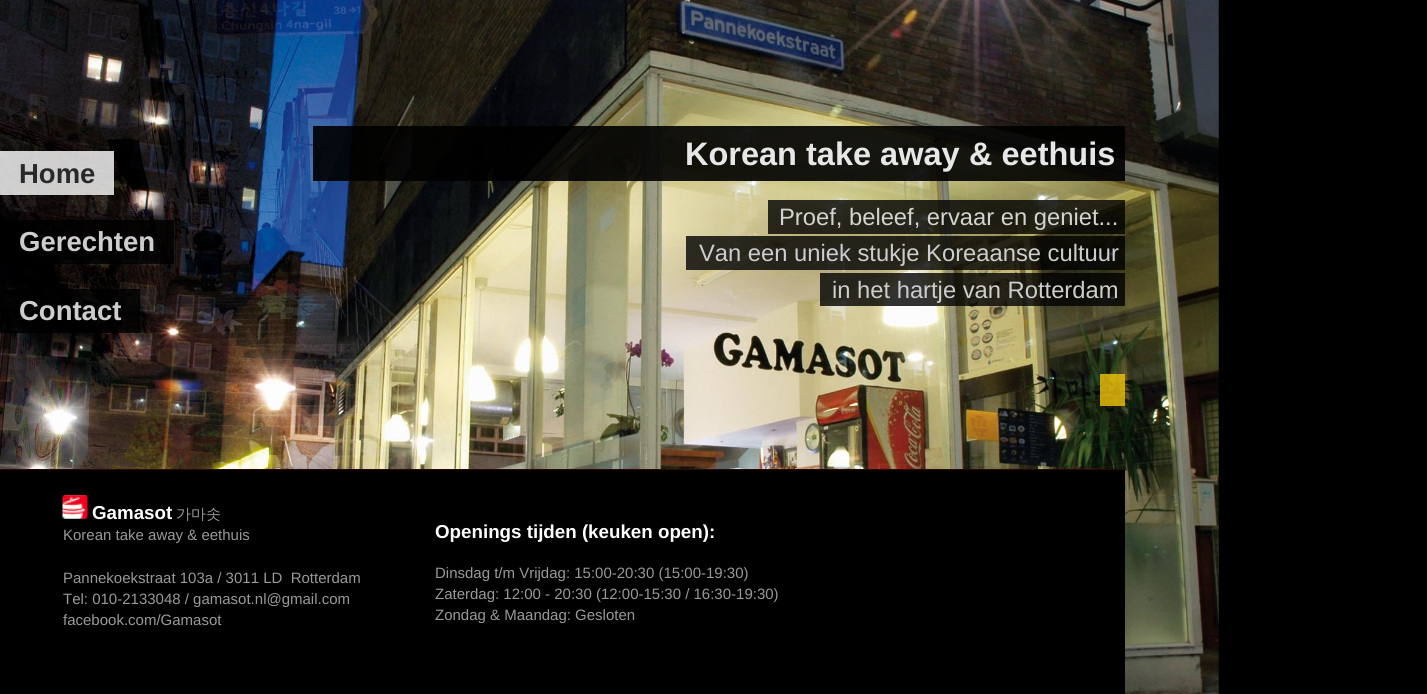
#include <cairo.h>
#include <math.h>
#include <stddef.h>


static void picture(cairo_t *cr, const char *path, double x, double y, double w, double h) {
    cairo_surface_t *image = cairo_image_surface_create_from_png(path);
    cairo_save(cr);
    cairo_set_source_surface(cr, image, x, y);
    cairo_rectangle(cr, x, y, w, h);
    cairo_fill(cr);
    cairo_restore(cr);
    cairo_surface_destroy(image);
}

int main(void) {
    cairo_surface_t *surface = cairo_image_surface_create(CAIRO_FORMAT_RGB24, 1427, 694);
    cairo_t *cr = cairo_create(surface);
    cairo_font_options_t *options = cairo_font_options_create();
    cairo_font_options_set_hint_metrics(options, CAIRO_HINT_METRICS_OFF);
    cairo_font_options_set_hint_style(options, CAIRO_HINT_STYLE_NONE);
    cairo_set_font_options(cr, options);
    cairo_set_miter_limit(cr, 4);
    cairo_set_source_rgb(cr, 0, 0, 0);
    cairo_paint(cr);
    picture(cr, "img1.png", 0, 0, 1219, 694);
    cairo_set_source_rgba(cr, 1, 1, 1, 0.8);
    cairo_rectangle(cr, 0, 151, 114, 44);
    cairo_fill(cr);
    cairo_select_font_face(cr, "Liberation Sans", CAIRO_FONT_SLANT_NORMAL, CAIRO_FONT_WEIGHT_BOLD);
    cairo_set_font_size(cr, 27.5);
    cairo_set_source_rgb(cr, 0.161, 0.161, 0.161);
    cairo_move_to(cr, 19, 183);
    cairo_show_text(cr, "Home");
    cairo_set_source_rgba(cr, 0, 0, 0, 0.8);
    cairo_rectangle(cr, 15, 220, 159, 44);
    cairo_fill(cr);
    cairo_set_source_rgb(cr, 0.804, 0.804, 0.804);
    cairo_move_to(cr, 19, 251);
    cairo_show_text(cr, "Gerechten");
    cairo_set_source_rgba(cr, 0, 0, 0, 0.8);
    cairo_rectangle(cr, 0, 289, 140, 44);
    cairo_fill(cr);
    cairo_set_source_rgb(cr, 0.804, 0.804, 0.804);
    cairo_move_to(cr, 19, 320);
    cairo_show_text(cr, "Contact");
    cairo_set_source_rgba(cr, 0, 0, 0, 0.9);
    cairo_rectangle(cr, 313, 126, 812, 55);
    cairo_fill(cr);
    cairo_set_font_size(cr, 32.5);
    cairo_set_source_rgb(cr, 0.906, 0.906, 0.906);
    cairo_move_to(cr, 685, 165);
    cairo_show_text(cr, "Korean take away");
    cairo_move_to(cr, 969, 165);
    cairo_show_text(cr, "& eethuis");
    cairo_set_source_rgba(cr, 0, 0, 0, 0.8);
    cairo_rectangle(cr, 768, 200, 357, 34);
    cairo_fill(cr);
    cairo_select_font_face(cr, "Liberation Sans", CAIRO_FONT_SLANT_NORMAL, CAIRO_FONT_WEIGHT_NORMAL);
    cairo_set_font_size(cr, 23.75);
    cairo_set_source_rgb(cr, 0.827, 0.827, 0.816);
    cairo_move_to(cr, 779, 225);
    cairo_show_text(cr, "Proef, beleef, ervaar en geniet...");
    cairo_set_source_rgba(cr, 0, 0, 0, 0.8);
    cairo_rectangle(cr, 686, 236, 439, 34);
    cairo_fill(cr);
    cairo_set_source_rgb(cr, 0.804, 0.804, 0.804);
    cairo_move_to(cr, 699, 261);
    cairo_show_text(cr, "Van een uniek stukje Koreaanse cultuur");
    cairo_set_source_rgba(cr, 0, 0, 0, 0.8);
    cairo_rectangle(cr, 820, 273, 305, 33);
    cairo_fill(cr);
    cairo_set_source_rgb(cr, 0.804, 0.804, 0.804);
    cairo_move_to(cr, 832, 298);
    cairo_show_text(cr, "in het hartje van Rotterdam");
    cairo_set_source_rgba(cr, 0.945, 0.765, 0.043, 0.8);
    cairo_rectangle(cr, 1100, 374, 25, 32);
    cairo_fill(cr);
    cairo_set_source_rgb(cr, 0, 0, 0);
    cairo_rectangle(cr, 0, 470, 1125, 224);
    cairo_fill(cr);
    cairo_set_source_rgb(cr, 0.184, 0.02, 0.02);
    cairo_rectangle(cr, 0, 469, 1125, 1);
    cairo_fill(cr);
    picture(cr, "img2.png", 62, 495, 26, 24);
    cairo_select_font_face(cr, "Liberation Sans", CAIRO_FONT_SLANT_NORMAL, CAIRO_FONT_WEIGHT_BOLD);
    cairo_set_font_size(cr, 18.75);
    cairo_set_source_rgb(cr, 1, 1, 1);
    cairo_move_to(cr, 92, 519);
    cairo_show_text(cr, "Gamasot");
    cairo_select_font_face(cr, "WenQuanYi Zen Hei Medium", CAIRO_FONT_SLANT_NORMAL, CAIRO_FONT_WEIGHT_NORMAL);
    cairo_set_font_size(cr, 15);
    cairo_set_source_rgb(cr, 0.6, 0.6, 0.6);
    cairo_move_to(cr, 176, 519);
    cairo_show_text(cr, "가마솟");
    cairo_select_font_face(cr, "Liberation Sans", CAIRO_FONT_SLANT_NORMAL, CAIRO_FONT_WEIGHT_NORMAL);
    cairo_move_to(cr, 63, 540);
    cairo_show_text(cr, "Korean take away & eethuis");
    cairo_move_to(cr, 63, 583);
    cairo_show_text(cr, "Pannekoekstraat 103a / 3011 LD  Rotterdam");
    cairo_move_to(cr, 63, 604);
    cairo_show_text(cr, "Tel: 010-2133048 / gamasot.nl@gmail.com");
    cairo_move_to(cr, 63, 625);
    cairo_show_text(cr, "facebook.com/Gamasot");
    cairo_select_font_face(cr, "Liberation Sans", CAIRO_FONT_SLANT_NORMAL, CAIRO_FONT_WEIGHT_BOLD);
    cairo_set_font_size(cr, 18.75);
    cairo_set_source_rgb(cr, 1, 1, 1);
    cairo_move_to(cr, 435, 538);
    cairo_show_text(cr, "Openings tijden (keuken open):");
    cairo_select_font_face(cr, "Liberation Sans", CAIRO_FONT_SLANT_NORMAL, CAIRO_FONT_WEIGHT_NORMAL);
    cairo_set_font_size(cr, 15);
    cairo_set_source_rgb(cr, 0.6, 0.6, 0.6);
    cairo_move_to(cr, 435, 578);
    cairo_show_text(cr, "Dinsdag t/m Vrijdag: 15:00-20:30 (15:00-19:30)");
    cairo_move_to(cr, 435, 599);
    cairo_show_text(cr, "Zaterdag: 12:00 - 20:30 (12:00-15:30 / 16:30-19:30)");
    cairo_move_to(cr, 435, 620);
    cairo_show_text(cr, "Zondag & Maandag: Gesloten");
    cairo_surface_write_to_png(surface, "page.png");
    cairo_font_options_destroy(options);
    cairo_destroy(cr);
    cairo_surface_destroy(surface);
    return 0;
}
